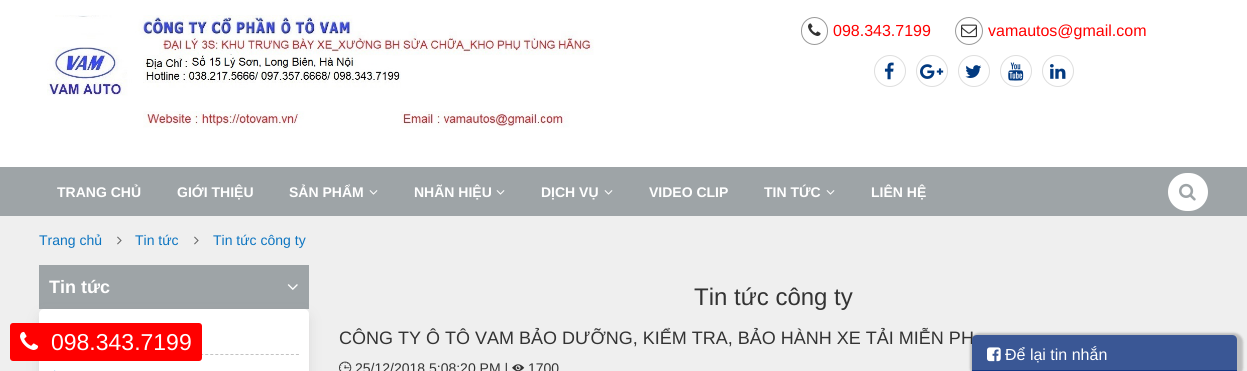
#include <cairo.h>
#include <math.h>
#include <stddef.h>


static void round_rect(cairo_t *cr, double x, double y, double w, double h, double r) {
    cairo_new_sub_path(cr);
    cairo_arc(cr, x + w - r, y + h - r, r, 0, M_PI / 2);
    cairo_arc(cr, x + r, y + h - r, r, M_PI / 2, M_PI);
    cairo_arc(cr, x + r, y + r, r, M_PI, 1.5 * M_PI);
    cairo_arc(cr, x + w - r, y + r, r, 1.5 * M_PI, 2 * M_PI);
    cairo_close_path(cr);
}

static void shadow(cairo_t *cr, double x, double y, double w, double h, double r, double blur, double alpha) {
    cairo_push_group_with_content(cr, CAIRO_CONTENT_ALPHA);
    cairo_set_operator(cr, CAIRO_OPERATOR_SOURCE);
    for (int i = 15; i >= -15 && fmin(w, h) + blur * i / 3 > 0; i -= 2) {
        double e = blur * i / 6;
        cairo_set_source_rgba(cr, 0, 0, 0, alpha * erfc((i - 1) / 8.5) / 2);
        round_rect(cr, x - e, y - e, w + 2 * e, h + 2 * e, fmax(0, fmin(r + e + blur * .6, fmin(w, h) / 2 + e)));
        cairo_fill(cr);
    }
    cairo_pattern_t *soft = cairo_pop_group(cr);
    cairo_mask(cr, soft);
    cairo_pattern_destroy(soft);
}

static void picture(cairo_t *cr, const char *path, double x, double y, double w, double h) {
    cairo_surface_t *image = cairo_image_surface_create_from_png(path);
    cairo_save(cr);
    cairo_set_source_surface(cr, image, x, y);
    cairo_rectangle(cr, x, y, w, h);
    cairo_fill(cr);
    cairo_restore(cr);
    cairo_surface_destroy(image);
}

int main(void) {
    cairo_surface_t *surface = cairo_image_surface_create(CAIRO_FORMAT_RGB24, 1247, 371);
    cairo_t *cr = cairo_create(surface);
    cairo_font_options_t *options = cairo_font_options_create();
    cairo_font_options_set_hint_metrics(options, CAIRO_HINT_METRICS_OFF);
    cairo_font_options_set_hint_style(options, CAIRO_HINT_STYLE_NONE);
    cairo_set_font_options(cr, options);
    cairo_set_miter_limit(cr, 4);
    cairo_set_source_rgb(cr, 0.937, 0.937, 0.937);
    cairo_paint(cr);
    cairo_set_source_rgb(cr, 1, 1, 1);
    cairo_rectangle(cr, 0, 0, 1247, 167);
    cairo_fill(cr);
    picture(cr, "img1.png", 47, 15, 547, 113);
    round_rect(cr, 801.5, 17.5, 26, 27, 13);
    cairo_set_source_rgb(cr, 0.6, 0.6, 0.6);
    cairo_set_line_width(cr, 1);
    cairo_stroke(cr);
    picture(cr, "img2.png", 808, 23, 13, 13);
    cairo_select_font_face(cr, "Liberation Sans", CAIRO_FONT_SLANT_NORMAL, CAIRO_FONT_WEIGHT_NORMAL);
    cairo_set_font_size(cr, 16);
    cairo_set_source_rgb(cr, 1, 0, 0);
    cairo_move_to(cr, 833, 36);
    cairo_show_text(cr, "098.343.7199");
    cairo_new_path(cr);
    cairo_arc(cr, 969, 31, 13.5, 0, 2 * M_PI);
    cairo_set_source_rgb(cr, 0.6, 0.6, 0.6);
    cairo_stroke(cr);
    picture(cr, "img3.png", 961, 24, 16, 14);
    cairo_set_source_rgb(cr, 1, 0, 0);
    cairo_move_to(cr, 988, 36);
    cairo_show_text(cr, "vamautos@gmail.com");
    cairo_new_path(cr);
    cairo_arc(cr, 890, 71, 15.5, 0, 2 * M_PI);
    cairo_set_source_rgb(cr, 0.871, 0.871, 0.871);
    cairo_stroke(cr);
    picture(cr, "img4.png", 884, 62, 10, 18);
    cairo_arc(cr, 932, 71, 15.5, 0, 2 * M_PI);
    cairo_stroke(cr);
    picture(cr, "img5.png", 920, 64, 24, 15);
    cairo_arc(cr, 974, 71, 15.5, 0, 2 * M_PI);
    cairo_stroke(cr);
    picture(cr, "img6.png", 965, 65, 17, 13);
    cairo_arc(cr, 1016, 71, 15.5, 0, 2 * M_PI);
    cairo_stroke(cr);
    picture(cr, "img7.png", 1008, 62, 16, 19);
    cairo_arc(cr, 1058, 71, 15.5, 0, 2 * M_PI);
    cairo_stroke(cr);
    picture(cr, "img8.png", 1050, 64, 16, 15);
    cairo_set_source_rgb(cr, 0.62, 0.643, 0.655);
    cairo_rectangle(cr, 0, 167, 1247, 49);
    cairo_fill(cr);
    cairo_select_font_face(cr, "Liberation Sans", CAIRO_FONT_SLANT_NORMAL, CAIRO_FONT_WEIGHT_BOLD);
    cairo_set_font_size(cr, 14);
    cairo_set_source_rgb(cr, 1, 1, 1);
    cairo_move_to(cr, 57, 197);
    cairo_show_text(cr, "TRANG CHỦ");
    cairo_move_to(cr, 177, 197);
    cairo_show_text(cr, "GIỚI THIỆU");
    cairo_move_to(cr, 289, 197);
    cairo_show_text(cr, "SẢN PHẨM");
    picture(cr, "img9.png", 369, 190, 9, 5);
    cairo_move_to(cr, 414, 197);
    cairo_show_text(cr, "NHÃN HIỆU");
    picture(cr, "img9.png", 496, 190, 9, 5);
    cairo_move_to(cr, 541, 197);
    cairo_show_text(cr, "DỊCH VỤ");
    picture(cr, "img9.png", 604, 190, 9, 5);
    cairo_move_to(cr, 649, 197);
    cairo_show_text(cr, "VIDEO CLIP");
    cairo_move_to(cr, 764, 197);
    cairo_show_text(cr, "TIN TỨC");
    picture(cr, "img9.png", 826, 190, 9, 5);
    cairo_move_to(cr, 871, 197);
    cairo_show_text(cr, "LIÊN HỆ");
    round_rect(cr, 1168, 173, 40, 38, 19);
    cairo_fill(cr);
    picture(cr, "img10.png", 1179, 183, 17, 18);
    cairo_select_font_face(cr, "Liberation Sans", CAIRO_FONT_SLANT_NORMAL, CAIRO_FONT_WEIGHT_NORMAL);
    cairo_set_source_rgb(cr, 0.051, 0.459, 0.757);
    cairo_move_to(cr, 39, 245);
    cairo_show_text(cr, "Trang chủ");
    picture(cr, "img11.png", 117, 236, 5, 9);
    cairo_move_to(cr, 135, 245);
    cairo_show_text(cr, "Tin tức");
    picture(cr, "img11.png", 194, 236, 5, 9);
    cairo_move_to(cr, 213, 245);
    cairo_show_text(cr, "Tin tức công ty");
    cairo_set_source_rgb(cr, 0.62, 0.643, 0.655);
    cairo_rectangle(cr, 39, 265, 270, 44);
    cairo_fill(cr);
    cairo_select_font_face(cr, "Liberation Sans", CAIRO_FONT_SLANT_NORMAL, CAIRO_FONT_WEIGHT_BOLD);
    cairo_set_font_size(cr, 18);
    cairo_set_source_rgb(cr, 1, 1, 1);
    cairo_move_to(cr, 49, 293);
    cairo_show_text(cr, "Tin tức");
    picture(cr, "img12.png", 287, 284, 11, 6);
    cairo_set_source_rgb(cr, 0.459, 0.447, 0.447);
    shadow(cr, 39, 315, 270, 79, 5, 6, 0.18);
    cairo_set_source_rgb(cr, 1, 1, 1);
    round_rect(cr, 39, 309, 270, 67, 5);
    cairo_fill(cr);
    cairo_new_path(cr);
    cairo_move_to(cr, 54, 354.5);
    cairo_line_to(cr, 299, 354.5);
    cairo_set_source_rgb(cr, 0.765, 0.765, 0.765);
    cairo_set_dash(cr, (double[]){3, 2.04}, 2, 0);
    cairo_stroke(cr);
    picture(cr, "img13.png", 54, 370, 2, 1);
    cairo_select_font_face(cr, "Liberation Sans", CAIRO_FONT_SLANT_NORMAL, CAIRO_FONT_WEIGHT_NORMAL);
    cairo_set_font_size(cr, 24);
    cairo_set_source_rgb(cr, 0.2, 0.2, 0.2);
    cairo_move_to(cr, 694, 305);
    cairo_show_text(cr, "Tin tức công ty");
    cairo_set_font_size(cr, 18);
    cairo_move_to(cr, 339, 344);
    cairo_show_text(cr, "CÔNG TY Ô TÔ VAM BẢO DƯỠNG, KIỂM TRA, BẢO HÀNH XE TẢI MIỄN PH");
    picture(cr, "img14.png", 339, 361, 13, 10);
    cairo_set_font_size(cr, 14);
    cairo_move_to(cr, 355, 373);
    cairo_show_text(cr, "25/12/2018 5:08:20 PM |");
    picture(cr, "img15.png", 512, 364, 13, 7);
    cairo_move_to(cr, 528, 373);
    cairo_show_text(cr, "1700");
    cairo_set_source_rgb(cr, 1, 0, 0);
    round_rect(cr, 10, 323, 192, 38, 3);
    cairo_fill(cr);
    picture(cr, "img16.png", 20, 331, 19, 19);
    cairo_set_font_size(cr, 23);
    cairo_set_source_rgb(cr, 1, 1, 1);
    cairo_move_to(cr, 51, 350);
    cairo_show_text(cr, "098.343.7199");
    cairo_set_source_rgb(cr, 0, 0, 0);
    shadow(cr, 970, 333, 273, 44, 9, 1, 0.2);
    cairo_set_source_rgb(cr, 0.227, 0.341, 0.584);
    cairo_new_path(cr);
    cairo_move_to(cr, 977, 335);
    cairo_line_to(cr, 1232, 335);
    cairo_curve_to(cr, 1235, 335, 1237, 337, 1237, 340);
    cairo_line_to(cr, 1237, 371);
    cairo_line_to(cr, 972, 371);
    cairo_line_to(cr, 972, 340);
    cairo_curve_to(cr, 972, 337, 974, 335, 977, 335);
    cairo_close_path(cr);
    cairo_fill(cr);
    cairo_set_source_rgb(cr, 0.075, 0.216, 0.514);
    cairo_rectangle(cr, 972, 370, 265, 1);
    cairo_fill(cr);
    picture(cr, "img17.png", 987, 347, 14, 15);
    cairo_set_font_size(cr, 16);
    cairo_set_source_rgb(cr, 1, 1, 1);
    cairo_move_to(cr, 1005, 360);
    cairo_show_text(cr, "Để lại tin nhắn");
    cairo_surface_write_to_png(surface, "page.png");
    cairo_font_options_destroy(options);
    cairo_destroy(cr);
    cairo_surface_destroy(surface);
    return 0;
}
